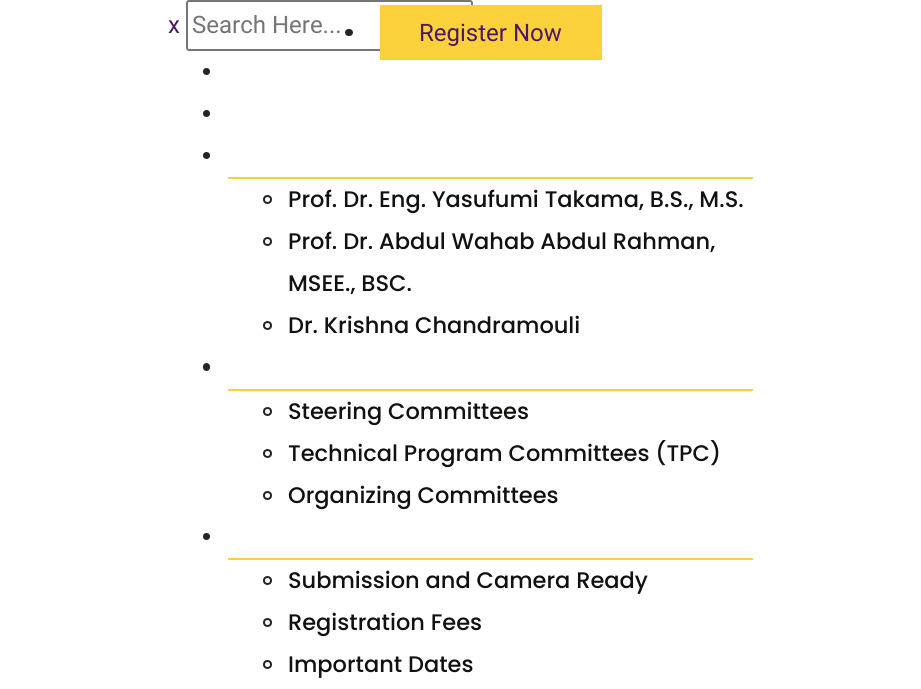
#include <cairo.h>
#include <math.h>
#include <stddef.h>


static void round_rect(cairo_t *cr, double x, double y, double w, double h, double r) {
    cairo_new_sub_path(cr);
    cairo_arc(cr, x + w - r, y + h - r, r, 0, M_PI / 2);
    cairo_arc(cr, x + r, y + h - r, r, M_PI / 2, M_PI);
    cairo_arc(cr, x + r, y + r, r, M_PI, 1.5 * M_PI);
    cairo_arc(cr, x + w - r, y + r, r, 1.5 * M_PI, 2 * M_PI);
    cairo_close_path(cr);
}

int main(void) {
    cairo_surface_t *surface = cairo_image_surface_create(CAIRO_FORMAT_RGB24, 921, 689);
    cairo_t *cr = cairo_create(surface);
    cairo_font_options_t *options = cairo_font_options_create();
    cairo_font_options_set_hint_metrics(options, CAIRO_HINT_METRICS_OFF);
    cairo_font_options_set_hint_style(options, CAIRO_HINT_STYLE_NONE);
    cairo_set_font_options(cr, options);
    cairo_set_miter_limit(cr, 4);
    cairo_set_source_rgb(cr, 1, 1, 1);
    cairo_paint(cr);
    cairo_select_font_face(cr, "Roboto", CAIRO_FONT_SLANT_NORMAL, CAIRO_FONT_WEIGHT_NORMAL);
    cairo_set_font_size(cr, 24);
    cairo_set_source_rgb(cr, 0.298, 0.094, 0.392);
    cairo_move_to(cr, 168, 33);
    cairo_show_text(cr, "x");
    round_rect(cr, 187, 1, 285, 49, 2);
    cairo_set_source_rgb(cr, 0.463, 0.463, 0.463);
    cairo_stroke(cr);
    cairo_set_source_rgb(cr, 0.459, 0.459, 0.459);
    cairo_move_to(cr, 192, 33);
    cairo_show_text(cr, "Search Here...");
    cairo_set_source_rgb(cr, 0.129, 0.145, 0.161);
    cairo_new_path(cr);
    cairo_arc(cr, 206.5, 71.5, 3.5, 0, 2 * M_PI);
    cairo_fill(cr);
    cairo_arc(cr, 206.5, 113.5, 3.5, 0, 2 * M_PI);
    cairo_fill(cr);
    cairo_arc(cr, 206.5, 155.5, 3.5, 0, 2 * M_PI);
    cairo_fill(cr);
    cairo_set_source_rgb(cr, 0.98, 0.816, 0.231);
    cairo_rectangle(cr, 228, 177, 525, 2);
    cairo_fill(cr);
    cairo_arc(cr, 267.5, 199.5, 3.5, 0, 2 * M_PI);
    cairo_set_source_rgb(cr, 0.129, 0.145, 0.161);
    cairo_stroke(cr);
    cairo_select_font_face(cr, "Poppins Medium", CAIRO_FONT_SLANT_NORMAL, CAIRO_FONT_WEIGHT_NORMAL);
    cairo_set_font_size(cr, 22.5);
    cairo_set_source_rgb(cr, 0.067, 0.067, 0.067);
    cairo_move_to(cr, 288, 207);
    cairo_show_text(cr, "Prof. Dr. Eng. Yasufumi Takama, B.S., M.S.");
    cairo_new_path(cr);
    cairo_arc(cr, 267.5, 241.5, 3.5, 0, 2 * M_PI);
    cairo_set_source_rgb(cr, 0.129, 0.145, 0.161);
    cairo_stroke(cr);
    cairo_set_source_rgb(cr, 0.067, 0.067, 0.067);
    cairo_move_to(cr, 288, 249);
    cairo_show_text(cr, "Prof. Dr. Abdul Wahab Abdul Rahman,");
    cairo_move_to(cr, 288, 291);
    cairo_show_text(cr, "MSEE., BSC.");
    cairo_new_path(cr);
    cairo_arc(cr, 267.5, 325.5, 3.5, 0, 2 * M_PI);
    cairo_set_source_rgb(cr, 0.129, 0.145, 0.161);
    cairo_stroke(cr);
    cairo_set_source_rgb(cr, 0.067, 0.067, 0.067);
    cairo_move_to(cr, 288, 333);
    cairo_show_text(cr, "Dr. Krishna Chandramouli");
    cairo_set_source_rgb(cr, 0.129, 0.145, 0.161);
    round_rect(cr, 203, 363, 7, 8, 3.5);
    cairo_fill(cr);
    cairo_set_source_rgb(cr, 0.98, 0.816, 0.231);
    cairo_rectangle(cr, 228, 389, 525, 2);
    cairo_fill(cr);
    cairo_arc(cr, 267.5, 411.5, 3.5, 0, 2 * M_PI);
    cairo_set_source_rgb(cr, 0.129, 0.145, 0.161);
    cairo_stroke(cr);
    cairo_set_source_rgb(cr, 0.067, 0.067, 0.067);
    cairo_move_to(cr, 288, 419);
    cairo_show_text(cr, "Steering Committees");
    cairo_new_path(cr);
    cairo_arc(cr, 267.5, 453.5, 3.5, 0, 2 * M_PI);
    cairo_set_source_rgb(cr, 0.129, 0.145, 0.161);
    cairo_stroke(cr);
    cairo_set_source_rgb(cr, 0.067, 0.067, 0.067);
    cairo_move_to(cr, 288, 461);
    cairo_show_text(cr, "Technical Program Committees (TPC)");
    cairo_new_path(cr);
    cairo_arc(cr, 267.5, 495.5, 3.5, 0, 2 * M_PI);
    cairo_set_source_rgb(cr, 0.129, 0.145, 0.161);
    cairo_stroke(cr);
    cairo_set_source_rgb(cr, 0.067, 0.067, 0.067);
    cairo_move_to(cr, 288, 503);
    cairo_show_text(cr, "Organizing Committees");
    cairo_set_source_rgb(cr, 0.129, 0.145, 0.161);
    cairo_new_path(cr);
    cairo_arc(cr, 206.5, 536.5, 3.5, 0, 2 * M_PI);
    cairo_fill(cr);
    cairo_set_source_rgb(cr, 0.98, 0.816, 0.231);
    cairo_rectangle(cr, 228, 558, 525, 2);
    cairo_fill(cr);
    cairo_arc(cr, 267.5, 580.5, 3.5, 0, 2 * M_PI);
    cairo_set_source_rgb(cr, 0.129, 0.145, 0.161);
    cairo_stroke(cr);
    cairo_set_source_rgb(cr, 0.067, 0.067, 0.067);
    cairo_move_to(cr, 288, 588);
    cairo_show_text(cr, "Submission and Camera Ready");
    cairo_new_path(cr);
    cairo_arc(cr, 267.5, 622.5, 3.5, 0, 2 * M_PI);
    cairo_set_source_rgb(cr, 0.129, 0.145, 0.161);
    cairo_stroke(cr);
    cairo_set_source_rgb(cr, 0.067, 0.067, 0.067);
    cairo_move_to(cr, 288, 630);
    cairo_show_text(cr, "Registration Fees");
    cairo_new_path(cr);
    cairo_arc(cr, 267.5, 664.5, 3.5, 0, 2 * M_PI);
    cairo_set_source_rgb(cr, 0.129, 0.145, 0.161);
    cairo_stroke(cr);
    cairo_set_source_rgb(cr, 0.067, 0.067, 0.067);
    cairo_move_to(cr, 288, 672);
    cairo_show_text(cr, "Important Dates");
    cairo_set_source_rgb(cr, 0.129, 0.145, 0.161);
    round_rect(cr, 345, 29, 8, 7, 3.5);
    cairo_fill(cr);
    cairo_set_source_rgb(cr, 0.98, 0.816, 0.231);
    cairo_rectangle(cr, 380, 5, 222, 55);
    cairo_fill(cr);
    cairo_select_font_face(cr, "Roboto", CAIRO_FONT_SLANT_NORMAL, CAIRO_FONT_WEIGHT_NORMAL);
    cairo_set_font_size(cr, 24);
    cairo_set_source_rgb(cr, 0.298, 0.094, 0.392);
    cairo_move_to(cr, 419, 41);
    cairo_show_text(cr, "Register Now");
    cairo_surface_write_to_png(surface, "page.png");
    cairo_font_options_destroy(options);
    cairo_destroy(cr);
    cairo_surface_destroy(surface);
    return 0;
}
